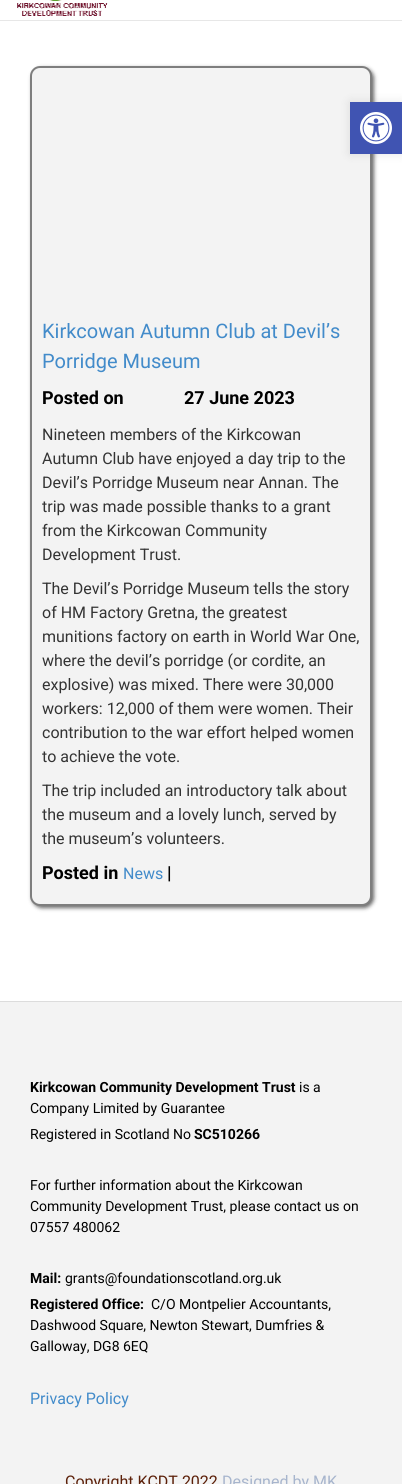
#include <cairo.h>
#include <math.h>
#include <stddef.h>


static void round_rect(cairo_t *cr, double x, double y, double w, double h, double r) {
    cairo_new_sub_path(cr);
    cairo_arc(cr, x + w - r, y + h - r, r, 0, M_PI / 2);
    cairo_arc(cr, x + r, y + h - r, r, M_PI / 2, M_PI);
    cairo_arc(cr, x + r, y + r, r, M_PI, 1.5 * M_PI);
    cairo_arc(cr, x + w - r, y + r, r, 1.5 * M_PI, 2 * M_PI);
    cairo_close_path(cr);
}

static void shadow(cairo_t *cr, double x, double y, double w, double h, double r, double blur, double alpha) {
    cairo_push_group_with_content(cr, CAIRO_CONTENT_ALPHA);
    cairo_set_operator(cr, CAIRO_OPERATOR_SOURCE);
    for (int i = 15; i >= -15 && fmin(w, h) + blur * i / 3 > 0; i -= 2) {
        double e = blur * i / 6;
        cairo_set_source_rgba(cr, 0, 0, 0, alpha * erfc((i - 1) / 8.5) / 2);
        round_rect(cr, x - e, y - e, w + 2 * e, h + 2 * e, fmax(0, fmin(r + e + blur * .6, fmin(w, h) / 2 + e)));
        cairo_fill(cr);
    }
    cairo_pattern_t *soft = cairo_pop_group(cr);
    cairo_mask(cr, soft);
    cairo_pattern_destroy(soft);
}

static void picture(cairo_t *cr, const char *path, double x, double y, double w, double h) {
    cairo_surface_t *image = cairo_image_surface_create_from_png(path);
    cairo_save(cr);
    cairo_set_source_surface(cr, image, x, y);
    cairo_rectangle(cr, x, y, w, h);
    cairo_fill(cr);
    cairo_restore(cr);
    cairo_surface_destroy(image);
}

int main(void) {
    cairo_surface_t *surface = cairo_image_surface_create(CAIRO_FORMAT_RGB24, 402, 1484);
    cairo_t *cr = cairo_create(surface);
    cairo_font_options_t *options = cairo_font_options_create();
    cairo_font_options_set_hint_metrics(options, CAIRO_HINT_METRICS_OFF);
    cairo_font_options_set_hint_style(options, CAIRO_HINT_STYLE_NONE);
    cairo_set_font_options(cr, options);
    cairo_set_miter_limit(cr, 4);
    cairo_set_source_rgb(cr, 1, 1, 1);
    cairo_paint(cr);
    cairo_set_source_rgb(cr, 0.906, 0.906, 0.906);
    cairo_rectangle(cr, 0, 20, 402, 1);
    cairo_fill(cr);
    picture(cr, "img1.png", 17, 0, 91, 16);
    cairo_set_source_rgb(cr, 0, 0, 0);
    shadow(cr, 32, 68, 342, 840, 10, 2, 0.59);
    cairo_set_source_rgb(cr, 0.953, 0.953, 0.953);
    round_rect(cr, 31, 67, 340, 838, 9);
    cairo_fill_preserve(cr);
    cairo_set_source_rgb(cr, 0.494, 0.494, 0.494);
    cairo_stroke(cr);
    cairo_set_source_rgb(cr, 0, 0, 0);
    shadow(cr, 350, 102, 52, 52, 0, 5, 0.1);
    cairo_set_source_rgb(cr, 0.251, 0.329, 0.698);
    cairo_rectangle(cr, 350, 102, 52, 52);
    cairo_fill(cr);
    picture(cr, "img2.png", 360, 112, 32, 32);
    cairo_select_font_face(cr, "Roboto", CAIRO_FONT_SLANT_NORMAL, CAIRO_FONT_WEIGHT_NORMAL);
    cairo_set_font_size(cr, 20);
    cairo_set_source_rgb(cr, 0.259, 0.545, 0.792);
    cairo_move_to(cr, 42, 338);
    cairo_show_text(cr, "Kirkcowan Autumn Club at Devil’s");
    cairo_move_to(cr, 42, 368);
    cairo_show_text(cr, "Porridge Museum");
    cairo_select_font_face(cr, "Roboto", CAIRO_FONT_SLANT_NORMAL, CAIRO_FONT_WEIGHT_BOLD);
    cairo_set_font_size(cr, 18);
    cairo_set_source_rgb(cr, 0, 0, 0);
    cairo_move_to(cr, 42, 404);
    cairo_show_text(cr, "Posted on");
    cairo_move_to(cr, 184, 404);
    cairo_show_text(cr, "27 June 2023");
    cairo_select_font_face(cr, "Roboto", CAIRO_FONT_SLANT_NORMAL, CAIRO_FONT_WEIGHT_NORMAL);
    cairo_set_font_size(cr, 16);
    cairo_set_source_rgb(cr, 0.2, 0.2, 0.2);
    cairo_move_to(cr, 42, 440);
    cairo_show_text(cr, "Nineteen members of the Kirkcowan");
    cairo_move_to(cr, 42, 464);
    cairo_show_text(cr, "Autumn Club have enjoyed a day trip to the");
    cairo_move_to(cr, 42, 488);
    cairo_show_text(cr, "Devil’s Porridge Museum near Annan. The");
    cairo_move_to(cr, 42, 512);
    cairo_show_text(cr, "trip was made possible thanks to a grant");
    cairo_move_to(cr, 42, 536);
    cairo_show_text(cr, "from the Kirkcowan Community");
    cairo_move_to(cr, 42, 560);
    cairo_show_text(cr, "Development Trust.");
    cairo_move_to(cr, 42, 594);
    cairo_show_text(cr, "The Devil’s Porridge Museum tells the story");
    cairo_move_to(cr, 42, 618);
    cairo_show_text(cr, "of HM Factory Gretna, the greatest");
    cairo_move_to(cr, 42, 642);
    cairo_show_text(cr, "munitions factory on earth in World War One,");
    cairo_move_to(cr, 42, 666);
    cairo_show_text(cr, "where the devil’s porridge (or cordite, an");
    cairo_move_to(cr, 42, 690);
    cairo_show_text(cr, "explosive) was mixed. There were 30,000");
    cairo_move_to(cr, 42, 714);
    cairo_show_text(cr, "workers: 12,000 of them were women. Their");
    cairo_move_to(cr, 42, 738);
    cairo_show_text(cr, "contribution to the war effort helped women");
    cairo_move_to(cr, 42, 762);
    cairo_show_text(cr, "to achieve the vote.");
    cairo_move_to(cr, 42, 796);
    cairo_show_text(cr, "The trip included an introductory talk about");
    cairo_move_to(cr, 42, 820);
    cairo_show_text(cr, "the museum and a lovely lunch, served by");
    cairo_move_to(cr, 42, 844);
    cairo_show_text(cr, "the museum’s volunteers.");
    cairo_select_font_face(cr, "Roboto", CAIRO_FONT_SLANT_NORMAL, CAIRO_FONT_WEIGHT_BOLD);
    cairo_set_font_size(cr, 18);
    cairo_set_source_rgb(cr, 0, 0, 0);
    cairo_move_to(cr, 42, 879);
    cairo_show_text(cr, "Posted in");
    cairo_select_font_face(cr, "Roboto", CAIRO_FONT_SLANT_NORMAL, CAIRO_FONT_WEIGHT_NORMAL);
    cairo_set_font_size(cr, 16);
    cairo_set_source_rgb(cr, 0.259, 0.545, 0.792);
    cairo_move_to(cr, 123, 879);
    cairo_show_text(cr, "News");
    cairo_select_font_face(cr, "Roboto", CAIRO_FONT_SLANT_NORMAL, CAIRO_FONT_WEIGHT_BOLD);
    cairo_set_font_size(cr, 18);
    cairo_set_source_rgb(cr, 0, 0, 0);
    cairo_move_to(cr, 167, 879);
    cairo_show_text(cr, "|");
    cairo_set_source_rgb(cr, 0.953, 0.953, 0.953);
    cairo_rectangle(cr, 0, 1002, 402, 482);
    cairo_fill(cr);
    cairo_set_source_rgb(cr, 0.863, 0.863, 0.863);
    cairo_rectangle(cr, 0, 1001, 402, 1);
    cairo_fill(cr);
    cairo_set_font_size(cr, 14);
    cairo_set_source_rgb(cr, 0, 0, 0);
    cairo_move_to(cr, 30, 1092);
    cairo_show_text(cr, "Kirkcowan Community Development Trust");
    cairo_select_font_face(cr, "Roboto", CAIRO_FONT_SLANT_NORMAL, CAIRO_FONT_WEIGHT_NORMAL);
    cairo_move_to(cr, 299, 1092);
    cairo_show_text(cr, "is a");
    cairo_move_to(cr, 30, 1113);
    cairo_show_text(cr, "Company Limited by Guarantee");
    cairo_move_to(cr, 30, 1139);
    cairo_show_text(cr, "Registered in Scotland No");
    cairo_select_font_face(cr, "Roboto", CAIRO_FONT_SLANT_NORMAL, CAIRO_FONT_WEIGHT_BOLD);
    cairo_move_to(cr, 194, 1139);
    cairo_show_text(cr, "SC510266");
    cairo_select_font_face(cr, "Roboto", CAIRO_FONT_SLANT_NORMAL, CAIRO_FONT_WEIGHT_NORMAL);
    cairo_move_to(cr, 30, 1190);
    cairo_show_text(cr, "For further information about the Kirkcowan");
    cairo_move_to(cr, 30, 1211);
    cairo_show_text(cr, "Community Development Trust, please contact us on");
    cairo_move_to(cr, 30, 1232);
    cairo_show_text(cr, "07557 480062");
    cairo_select_font_face(cr, "Roboto", CAIRO_FONT_SLANT_NORMAL, CAIRO_FONT_WEIGHT_BOLD);
    cairo_move_to(cr, 30, 1283);
    cairo_show_text(cr, "Mail:");
    cairo_select_font_face(cr, "Roboto", CAIRO_FONT_SLANT_NORMAL, CAIRO_FONT_WEIGHT_NORMAL);
    cairo_move_to(cr, 65, 1283);
    cairo_show_text(cr, "grants@foundationscotland.org.uk");
    cairo_select_font_face(cr, "Roboto", CAIRO_FONT_SLANT_NORMAL, CAIRO_FONT_WEIGHT_BOLD);
    cairo_move_to(cr, 30, 1309);
    cairo_show_text(cr, "Registered Office:");
    cairo_select_font_face(cr, "Roboto", CAIRO_FONT_SLANT_NORMAL, CAIRO_FONT_WEIGHT_NORMAL);
    cairo_move_to(cr, 151, 1309);
    cairo_show_text(cr, "C/O Montpelier Accountants,");
    cairo_move_to(cr, 30, 1330);
    cairo_show_text(cr, "Dashwood Square, Newton Stewart, Dumfries &");
    cairo_move_to(cr, 30, 1351);
    cairo_show_text(cr, "Galloway, DG8 6EQ");
    cairo_set_font_size(cr, 16);
    cairo_set_source_rgb(cr, 0.259, 0.545, 0.792);
    cairo_move_to(cr, 30, 1404);
    cairo_show_text(cr, "Privacy Policy");
    cairo_set_source_rgb(cr, 0.361, 0.125, 0.039);
    cairo_move_to(cr, 65, 1487);
    cairo_show_text(cr, "Copyright KCDT 2022");
    cairo_set_source_rgb(cr, 0.655, 0.71, 0.804);
    cairo_move_to(cr, 222, 1487);
    cairo_show_text(cr, "Designed by MK");
    cairo_surface_write_to_png(surface, "page.png");
    cairo_font_options_destroy(options);
    cairo_destroy(cr);
    cairo_surface_destroy(surface);
    return 0;
}
